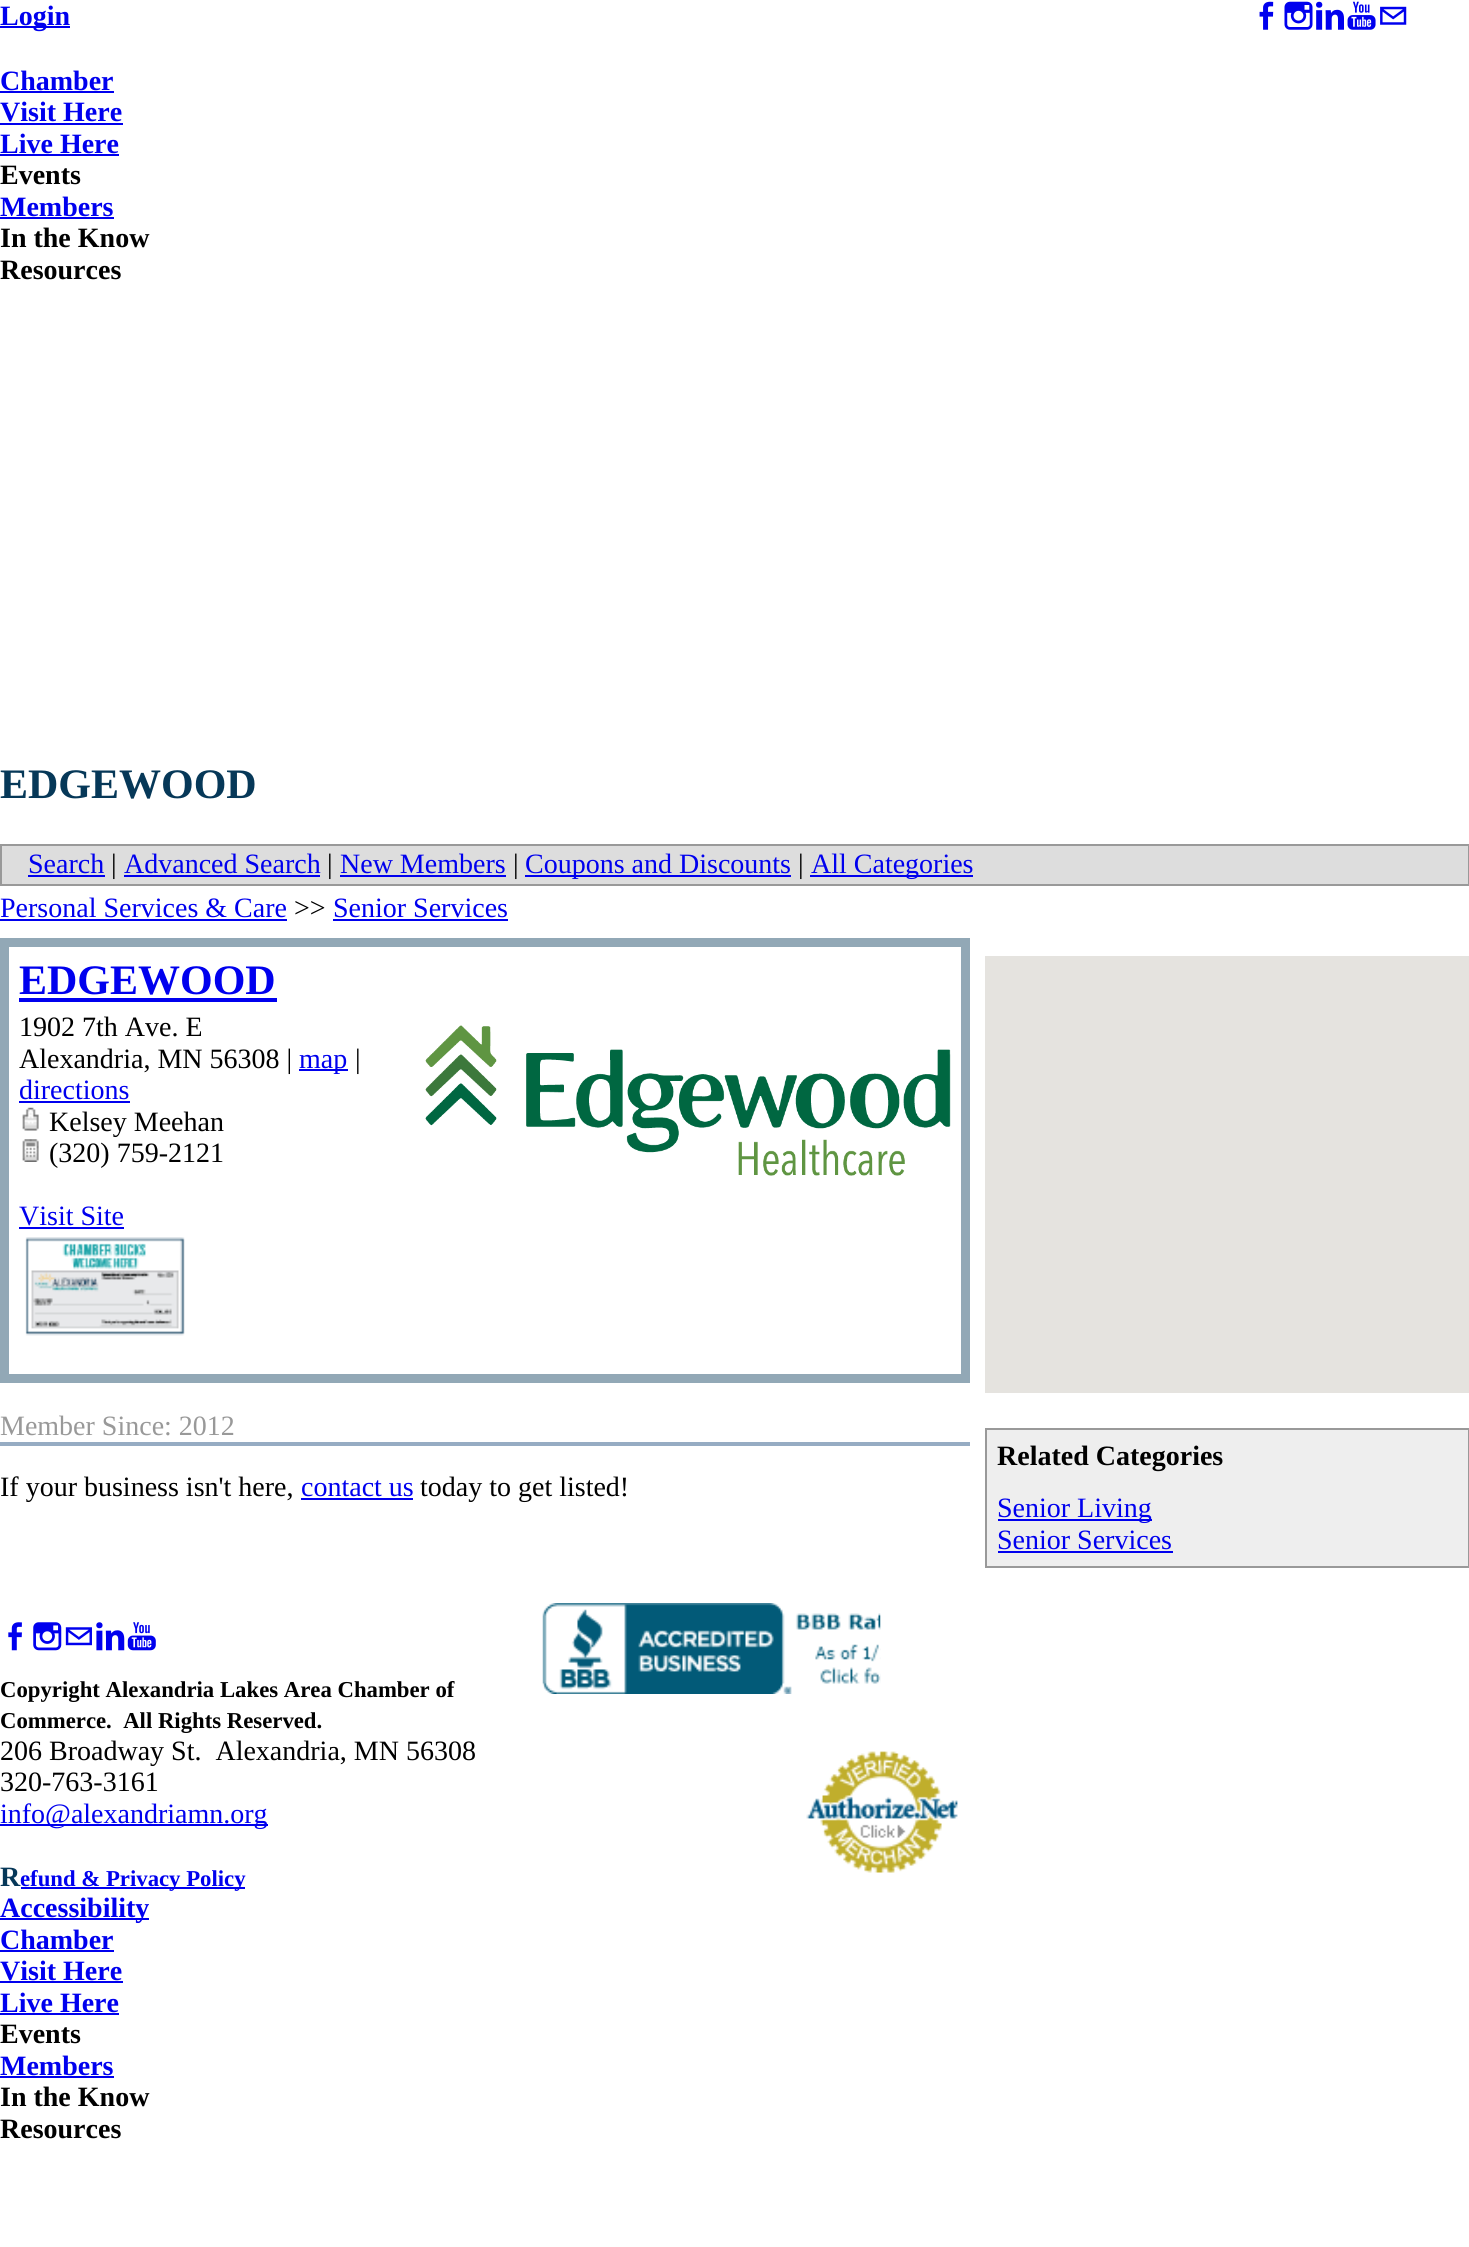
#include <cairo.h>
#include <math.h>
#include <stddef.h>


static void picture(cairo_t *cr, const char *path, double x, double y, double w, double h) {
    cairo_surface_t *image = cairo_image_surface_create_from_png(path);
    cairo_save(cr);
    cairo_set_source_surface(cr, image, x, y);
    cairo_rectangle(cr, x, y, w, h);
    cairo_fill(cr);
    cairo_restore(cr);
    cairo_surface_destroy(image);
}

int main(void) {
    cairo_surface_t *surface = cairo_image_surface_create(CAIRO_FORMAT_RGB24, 1469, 2247);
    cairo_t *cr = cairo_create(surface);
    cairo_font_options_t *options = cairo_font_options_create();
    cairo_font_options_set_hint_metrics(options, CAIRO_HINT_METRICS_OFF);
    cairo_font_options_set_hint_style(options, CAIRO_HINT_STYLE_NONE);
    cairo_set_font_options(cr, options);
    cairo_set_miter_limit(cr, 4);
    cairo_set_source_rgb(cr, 1, 1, 1);
    cairo_paint(cr);
    cairo_set_source_rgb(cr, 0, 0, 0.933);
    cairo_rectangle(cr, 0, 26, 70, 2);
    cairo_fill(cr);
    cairo_select_font_face(cr, "Liberation Serif", CAIRO_FONT_SLANT_NORMAL, CAIRO_FONT_WEIGHT_BOLD);
    cairo_set_font_size(cr, 28);
    cairo_move_to(cr, 0, 25);
    cairo_show_text(cr, "Login");
    picture(cr, "img1.png", 1259, 1, 15, 29);
    picture(cr, "img2.png", 1284, 1, 29, 29);
    picture(cr, "img3.png", 1316, 1, 28, 29);
    picture(cr, "img4.png", 1347, 1, 29, 29);
    picture(cr, "img5.png", 1380, 6, 27, 19);
    cairo_move_to(cr, 0, 90);
    cairo_show_text(cr, "Chamber");
    cairo_rectangle(cr, 0, 91, 114, 2);
    cairo_fill(cr);
    cairo_move_to(cr, 0, 121);
    cairo_show_text(cr, "Visit Here");
    cairo_rectangle(cr, 0, 123, 123, 2);
    cairo_fill(cr);
    cairo_move_to(cr, 0, 153);
    cairo_show_text(cr, "Live Here");
    cairo_rectangle(cr, 0, 154, 119, 2);
    cairo_fill(cr);
    cairo_set_source_rgb(cr, 0, 0, 0);
    cairo_move_to(cr, 0, 184);
    cairo_show_text(cr, "Events");
    cairo_set_source_rgb(cr, 0, 0, 0.933);
    cairo_move_to(cr, 0, 216);
    cairo_show_text(cr, "Members");
    cairo_rectangle(cr, 0, 217, 114, 2);
    cairo_fill(cr);
    cairo_set_source_rgb(cr, 0, 0, 0);
    cairo_move_to(cr, 0, 247);
    cairo_show_text(cr, "In the Know");
    cairo_move_to(cr, 0, 279);
    cairo_show_text(cr, "Resources");
    cairo_set_font_size(cr, 42);
    cairo_set_source_rgb(cr, 0.027, 0.22, 0.345);
    cairo_move_to(cr, 0, 798);
    cairo_show_text(cr, "EDGEWOOD");
    cairo_set_source_rgb(cr, 0.867, 0.867, 0.867);
    cairo_rectangle(cr, 1, 845, 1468, 40);
    cairo_fill_preserve(cr);
    cairo_set_source_rgb(cr, 0.6, 0.6, 0.6);
    cairo_stroke(cr);
    cairo_select_font_face(cr, "Liberation Serif", CAIRO_FONT_SLANT_NORMAL, CAIRO_FONT_WEIGHT_NORMAL);
    cairo_set_font_size(cr, 28);
    cairo_set_source_rgb(cr, 0, 0, 0.933);
    cairo_move_to(cr, 28, 873);
    cairo_show_text(cr, "Search");
    cairo_rectangle(cr, 28, 875, 77, 2);
    cairo_fill(cr);
    cairo_set_source_rgb(cr, 0, 0, 0);
    cairo_move_to(cr, 111, 873);
    cairo_show_text(cr, "|");
    cairo_set_source_rgb(cr, 0, 0, 0.933);
    cairo_move_to(cr, 124, 873);
    cairo_show_text(cr, "Advanced Search");
    cairo_rectangle(cr, 124, 875, 196, 2);
    cairo_fill(cr);
    cairo_set_source_rgb(cr, 0, 0, 0);
    cairo_move_to(cr, 327, 873);
    cairo_show_text(cr, "|");
    cairo_set_source_rgb(cr, 0, 0, 0.933);
    cairo_move_to(cr, 340, 873);
    cairo_show_text(cr, "New Members");
    cairo_rectangle(cr, 340, 875, 166, 2);
    cairo_fill(cr);
    cairo_set_source_rgb(cr, 0, 0, 0);
    cairo_move_to(cr, 513, 873);
    cairo_show_text(cr, "|");
    cairo_set_source_rgb(cr, 0, 0, 0.933);
    cairo_rectangle(cr, 525, 875, 266, 2);
    cairo_fill(cr);
    cairo_move_to(cr, 525, 873);
    cairo_show_text(cr, "Coupons and Discounts");
    cairo_set_source_rgb(cr, 0, 0, 0);
    cairo_move_to(cr, 798, 873);
    cairo_show_text(cr, "|");
    cairo_set_source_rgb(cr, 0, 0, 0.933);
    cairo_rectangle(cr, 810, 875, 163, 2);
    cairo_fill(cr);
    cairo_move_to(cr, 811, 873);
    cairo_show_text(cr, "All Categories");
    cairo_move_to(cr, 0, 917);
    cairo_show_text(cr, "Personal Services & Care");
    cairo_rectangle(cr, 0, 919, 287, 2);
    cairo_fill(cr);
    cairo_set_source_rgb(cr, 0, 0, 0);
    cairo_move_to(cr, 294, 917);
    cairo_show_text(cr, ">>");
    cairo_set_source_rgb(cr, 0, 0, 0.933);
    cairo_move_to(cr, 333, 917);
    cairo_show_text(cr, "Senior Services");
    cairo_rectangle(cr, 333, 919, 175, 2);
    cairo_fill(cr);
    cairo_set_source_rgb(cr, 0.573, 0.659, 0.714);
    cairo_rectangle(cr, 0, 938, 970, 445);
    cairo_fill(cr);
    cairo_set_source_rgb(cr, 1, 1, 1);
    cairo_rectangle(cr, 9, 947, 952, 427);
    cairo_fill(cr);
    cairo_select_font_face(cr, "Liberation Serif", CAIRO_FONT_SLANT_NORMAL, CAIRO_FONT_WEIGHT_BOLD);
    cairo_set_font_size(cr, 42);
    cairo_set_source_rgb(cr, 0, 0, 0.933);
    cairo_move_to(cr, 19, 994);
    cairo_show_text(cr, "EDGEWOOD");
    cairo_rectangle(cr, 19, 998, 258, 4);
    cairo_fill(cr);
    cairo_select_font_face(cr, "Liberation Serif", CAIRO_FONT_SLANT_NORMAL, CAIRO_FONT_WEIGHT_NORMAL);
    cairo_set_font_size(cr, 28);
    cairo_set_source_rgb(cr, 0, 0, 0);
    cairo_move_to(cr, 19, 1036);
    cairo_show_text(cr, "1902 7th Ave. E");
    cairo_move_to(cr, 19, 1068);
    cairo_show_text(cr, "Alexandria, MN 56308 |");
    cairo_set_source_rgb(cr, 0, 0, 0.933);
    cairo_rectangle(cr, 299, 1069, 49, 2);
    cairo_fill(cr);
    cairo_move_to(cr, 299, 1068);
    cairo_show_text(cr, "map");
    cairo_set_source_rgb(cr, 0, 0, 0);
    cairo_move_to(cr, 355, 1068);
    cairo_show_text(cr, "|");
    cairo_set_source_rgb(cr, 0, 0, 0.933);
    cairo_move_to(cr, 19, 1099);
    cairo_show_text(cr, "directions");
    cairo_rectangle(cr, 19, 1101, 111, 2);
    cairo_fill(cr);
    picture(cr, "img6.png", 22, 1107, 17, 24);
    cairo_set_source_rgb(cr, 0, 0, 0);
    cairo_move_to(cr, 49, 1131);
    cairo_show_text(cr, "Kelsey Meehan");
    picture(cr, "img7.png", 22, 1139, 17, 23);
    cairo_move_to(cr, 49, 1162);
    cairo_show_text(cr, "(320) 759-2121");
    cairo_set_source_rgb(cr, 0, 0, 0.933);
    cairo_move_to(cr, 19, 1225);
    cairo_show_text(cr, "Visit Site");
    cairo_rectangle(cr, 19, 1227, 105, 2);
    cairo_fill(cr);
    picture(cr, "img8.png", 425, 1025, 526, 151);
    picture(cr, "img9.png", 25, 1237, 160, 99);
    cairo_set_source_rgb(cr, 0.6, 0.6, 0.6);
    cairo_move_to(cr, 0, 1435);
    cairo_show_text(cr, "Member Since: 2012");
    cairo_set_source_rgb(cr, 0.588, 0.675, 0.765);
    cairo_rectangle(cr, 0, 1442, 970, 4);
    cairo_fill(cr);
    cairo_set_source_rgb(cr, 0, 0, 0);
    cairo_move_to(cr, 0, 1496);
    cairo_show_text(cr, "If your business isn't here,");
    cairo_set_source_rgb(cr, 0, 0, 0.933);
    cairo_move_to(cr, 301, 1496);
    cairo_show_text(cr, "contact us");
    cairo_rectangle(cr, 301, 1498, 112, 2);
    cairo_fill(cr);
    cairo_set_source_rgb(cr, 0, 0, 0);
    cairo_move_to(cr, 420, 1496);
    cairo_show_text(cr, "today to get listed!");
    cairo_set_source_rgb(cr, 0.898, 0.89, 0.875);
    cairo_rectangle(cr, 985, 956, 484, 437);
    cairo_fill(cr);
    cairo_set_source_rgb(cr, 0.933, 0.933, 0.933);
    cairo_rectangle(cr, 986, 1429, 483, 138);
    cairo_fill_preserve(cr);
    cairo_set_source_rgb(cr, 0.6, 0.6, 0.6);
    cairo_stroke(cr);
    cairo_select_font_face(cr, "Liberation Serif", CAIRO_FONT_SLANT_NORMAL, CAIRO_FONT_WEIGHT_BOLD);
    cairo_set_source_rgb(cr, 0, 0, 0);
    cairo_move_to(cr, 997, 1465);
    cairo_show_text(cr, "Related Categories");
    cairo_set_source_rgb(cr, 0, 0, 0.933);
    cairo_rectangle(cr, 998, 1519, 154, 2);
    cairo_fill(cr);
    cairo_select_font_face(cr, "Liberation Serif", CAIRO_FONT_SLANT_NORMAL, CAIRO_FONT_WEIGHT_NORMAL);
    cairo_move_to(cr, 997, 1517);
    cairo_show_text(cr, "Senior Living");
    cairo_move_to(cr, 997, 1549);
    cairo_show_text(cr, "Senior Services");
    cairo_rectangle(cr, 998, 1551, 175, 2);
    cairo_fill(cr);
    picture(cr, "img10.png", 8, 1622, 14, 29);
    picture(cr, "img11.png", 33, 1622, 29, 29);
    picture(cr, "img12.png", 65, 1627, 27, 19);
    picture(cr, "img13.png", 96, 1622, 29, 29);
    picture(cr, "img14.png", 127, 1622, 29, 29);
    cairo_select_font_face(cr, "Liberation Serif", CAIRO_FONT_SLANT_NORMAL, CAIRO_FONT_WEIGHT_BOLD);
    cairo_set_font_size(cr, 22.75);
    cairo_set_source_rgb(cr, 0, 0, 0);
    cairo_move_to(cr, 0, 1697);
    cairo_show_text(cr, "Copyright Alexandria Lakes Area Chamber of");
    cairo_move_to(cr, 0, 1728);
    cairo_show_text(cr, "Commerce.  All Rights Reserved.");
    cairo_select_font_face(cr, "Liberation Serif", CAIRO_FONT_SLANT_NORMAL, CAIRO_FONT_WEIGHT_NORMAL);
    cairo_set_font_size(cr, 28);
    cairo_move_to(cr, 0, 1760);
    cairo_show_text(cr, "206 Broadway St.  Alexandria, MN 56308");
    cairo_move_to(cr, 0, 1791);
    cairo_show_text(cr, "320-763-3161");
    cairo_set_source_rgb(cr, 0, 0, 0.933);
    cairo_rectangle(cr, 0, 1824, 268, 2);
    cairo_fill(cr);
    cairo_move_to(cr, 0, 1823);
    cairo_show_text(cr, "info@alexandriamn.org");
    cairo_select_font_face(cr, "Liberation Serif", CAIRO_FONT_SLANT_NORMAL, CAIRO_FONT_WEIGHT_BOLD);
    cairo_set_source_rgb(cr, 0.027, 0.22, 0.345);
    cairo_move_to(cr, 0, 1886);
    cairo_show_text(cr, "R");
    cairo_set_source_rgb(cr, 0, 0, 0.933);
    cairo_rectangle(cr, 21, 1887, 224, 2);
    cairo_fill(cr);
    cairo_set_font_size(cr, 22.75);
    cairo_move_to(cr, 20, 1886);
    cairo_show_text(cr, "efund & Privacy Policy");
    cairo_rectangle(cr, 0, 1918, 149, 2);
    cairo_fill(cr);
    cairo_set_font_size(cr, 28);
    cairo_move_to(cr, 0, 1917);
    cairo_show_text(cr, "Accessibility");
    picture(cr, "img15.png", 542, 1603, 339, 91);
    picture(cr, "img16.png", 806, 1751, 152, 122);
    cairo_move_to(cr, 0, 1949);
    cairo_show_text(cr, "Chamber");
    cairo_rectangle(cr, 0, 1950, 114, 2);
    cairo_fill(cr);
    cairo_move_to(cr, 0, 1980);
    cairo_show_text(cr, "Visit Here");
    cairo_rectangle(cr, 0, 1981, 123, 2);
    cairo_fill(cr);
    cairo_move_to(cr, 0, 2012);
    cairo_show_text(cr, "Live Here");
    cairo_rectangle(cr, 0, 2013, 119, 2);
    cairo_fill(cr);
    cairo_set_source_rgb(cr, 0, 0, 0);
    cairo_move_to(cr, 0, 2043);
    cairo_show_text(cr, "Events");
    cairo_set_source_rgb(cr, 0, 0, 0.933);
    cairo_move_to(cr, 0, 2075);
    cairo_show_text(cr, "Members");
    cairo_rectangle(cr, 0, 2076, 114, 2);
    cairo_fill(cr);
    cairo_set_source_rgb(cr, 0, 0, 0);
    cairo_move_to(cr, 0, 2106);
    cairo_show_text(cr, "In the Know");
    cairo_move_to(cr, 0, 2138);
    cairo_show_text(cr, "Resources");
    cairo_surface_write_to_png(surface, "page.png");
    cairo_font_options_destroy(options);
    cairo_destroy(cr);
    cairo_surface_destroy(surface);
    return 0;
}
